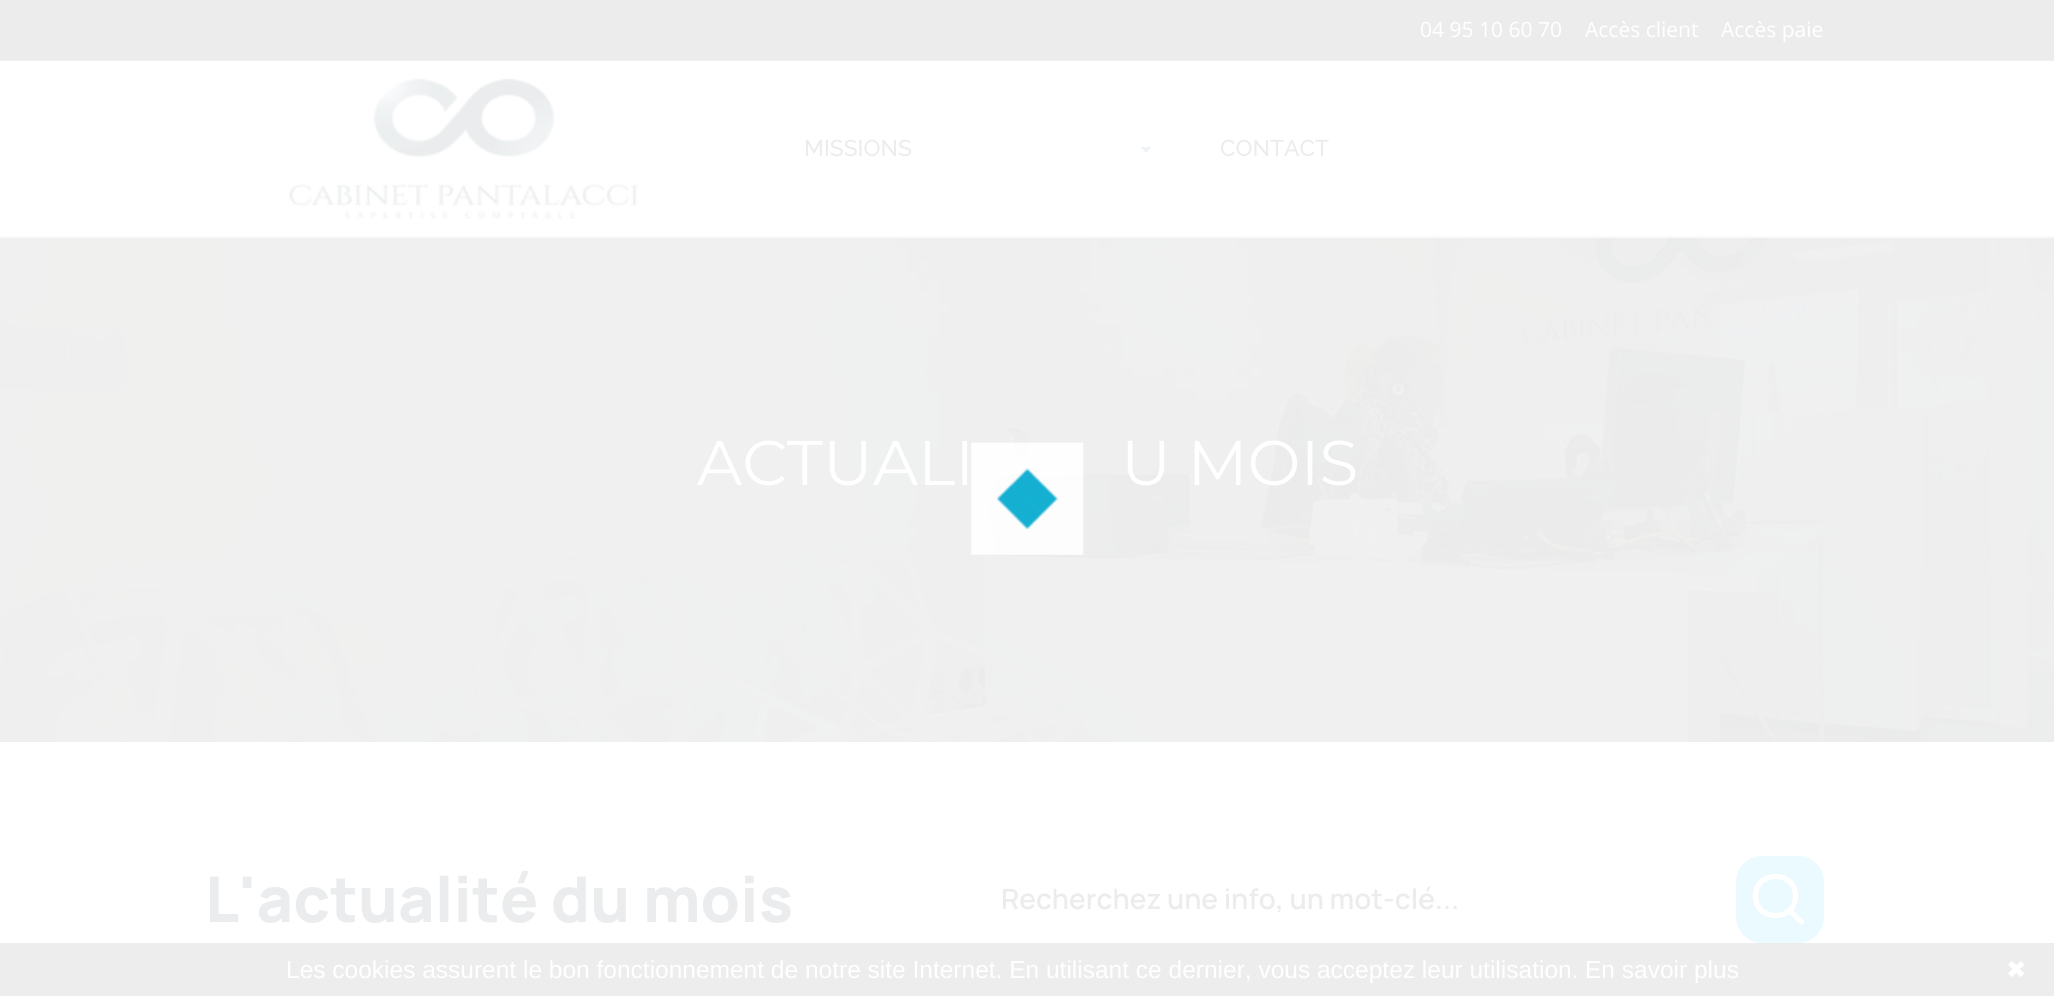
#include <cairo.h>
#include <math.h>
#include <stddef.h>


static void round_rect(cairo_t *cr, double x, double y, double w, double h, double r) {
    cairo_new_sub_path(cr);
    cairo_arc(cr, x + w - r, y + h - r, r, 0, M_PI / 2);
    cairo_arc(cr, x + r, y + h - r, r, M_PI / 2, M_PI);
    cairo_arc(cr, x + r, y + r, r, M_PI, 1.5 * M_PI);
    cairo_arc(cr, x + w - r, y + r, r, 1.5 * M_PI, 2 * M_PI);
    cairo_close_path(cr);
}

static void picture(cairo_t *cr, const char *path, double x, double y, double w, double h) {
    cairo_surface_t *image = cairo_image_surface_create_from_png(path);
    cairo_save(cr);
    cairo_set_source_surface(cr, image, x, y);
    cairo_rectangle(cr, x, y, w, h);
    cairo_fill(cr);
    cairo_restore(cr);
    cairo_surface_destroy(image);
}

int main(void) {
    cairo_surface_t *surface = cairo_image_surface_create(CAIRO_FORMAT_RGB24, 2054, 996);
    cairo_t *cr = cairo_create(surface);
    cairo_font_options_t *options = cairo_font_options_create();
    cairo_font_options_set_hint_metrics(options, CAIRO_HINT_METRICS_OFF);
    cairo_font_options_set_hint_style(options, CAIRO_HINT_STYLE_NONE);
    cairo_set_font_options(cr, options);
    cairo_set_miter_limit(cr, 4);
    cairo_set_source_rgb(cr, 1, 1, 1);
    cairo_paint(cr);
    cairo_set_source_rgb(cr, 0.925, 0.925, 0.929);
    cairo_rectangle(cr, 0, 0, 2054, 60);
    cairo_fill(cr);
    cairo_set_source_rgb(cr, 0.937, 0.941, 0.945);
    cairo_rectangle(cr, 0, 60, 2054, 1);
    cairo_fill(cr);
    cairo_select_font_face(cr, "Open Sans", CAIRO_FONT_SLANT_NORMAL, CAIRO_FONT_WEIGHT_NORMAL);
    cairo_set_font_size(cr, 21);
    cairo_set_source_rgb(cr, 1, 1, 1);
    cairo_move_to(cr, 1420, 37);
    cairo_show_text(cr, "04 95 10 60 70");
    cairo_move_to(cr, 1585, 37);
    cairo_show_text(cr, "Accès client");
    cairo_move_to(cr, 1721, 37);
    cairo_show_text(cr, "Accès paie");
    cairo_set_source_rgb(cr, 0.98, 0.98, 0.98);
    cairo_rectangle(cr, 0, 236, 2054, 2);
    cairo_fill(cr);
    picture(cr, "img1.png", 288, 78, 351, 141);
    cairo_select_font_face(cr, "Raleway Medium", CAIRO_FONT_SLANT_NORMAL, CAIRO_FONT_WEIGHT_NORMAL);
    cairo_set_font_size(cr, 22.75);
    cairo_set_source_rgb(cr, 0.918, 0.925, 0.929);
    cairo_move_to(cr, 804, 156);
    cairo_show_text(cr, "MISSIONS");
    picture(cr, "img2.png", 1141, 147, 10, 6);
    cairo_move_to(cr, 1220, 156);
    cairo_show_text(cr, "CONTACT");
    picture(cr, "img3.png", 0, 238, 2054, 504);
    cairo_select_font_face(cr, "Montserrat", CAIRO_FONT_SLANT_NORMAL, CAIRO_FONT_WEIGHT_NORMAL);
    cairo_set_font_size(cr, 63);
    cairo_set_source_rgb(cr, 1, 1, 1);
    cairo_move_to(cr, 697, 485);
    cairo_show_text(cr, "ACTUALI");
    cairo_move_to(cr, 1121, 485);
    cairo_show_text(cr, "U MOIS");
    picture(cr, "img4.png", 971, 442, 113, 113);
    cairo_select_font_face(cr, "Manrope ExtraBold", CAIRO_FONT_SLANT_NORMAL, CAIRO_FONT_WEIGHT_NORMAL);
    cairo_set_source_rgb(cr, 0.918, 0.925, 0.929);
    cairo_move_to(cr, 205, 922);
    cairo_show_text(cr, "L'actualité du mois");
    cairo_select_font_face(cr, "Manrope SemiBold", CAIRO_FONT_SLANT_NORMAL, CAIRO_FONT_WEIGHT_NORMAL);
    cairo_set_font_size(cr, 28);
    cairo_move_to(cr, 1001, 909);
    cairo_show_text(cr, "Recherchez une info, un mot-clé...");
    cairo_set_source_rgb(cr, 0.918, 0.98, 0.996);
    round_rect(cr, 1736, 856, 88, 87, 26);
    cairo_fill(cr);
    cairo_new_path(cr);
    cairo_move_to(cr, 1801.5, 922);
    cairo_line_to(cr, 1789.5, 910.5);
    cairo_move_to(cr, 1755.5, 896);
    cairo_curve_to(cr, 1755.5, 870, 1795.5, 870, 1795.5, 896);
    cairo_curve_to(cr, 1795.5, 922, 1755.5, 922, 1755.5, 896);
    cairo_close_path(cr);
    cairo_set_source_rgb(cr, 1, 1, 1);
    cairo_set_line_width(cr, 5.4);
    cairo_set_line_cap(cr, CAIRO_LINE_CAP_ROUND);
    cairo_set_line_join(cr, CAIRO_LINE_JOIN_ROUND);
    cairo_stroke(cr);
    cairo_set_source_rgba(cr, 0.91, 0.91, 0.91, 0.8);
    cairo_rectangle(cr, 0, 943, 2054, 53);
    cairo_fill(cr);
    cairo_select_font_face(cr, "Liberation Sans", CAIRO_FONT_SLANT_NORMAL, CAIRO_FONT_WEIGHT_NORMAL);
    cairo_set_font_size(cr, 24.5);
    cairo_set_source_rgb(cr, 1, 1, 1);
    cairo_move_to(cr, 286, 978);
    cairo_show_text(cr, "Les cookies assurent le bon fonctionnement de notre site Internet. En utilisant ce dernier, vous acceptez leur utilisation.");
    cairo_move_to(cr, 1585, 978);
    cairo_show_text(cr, "En savoir plus");
    cairo_select_font_face(cr, "DejaVu Sans", CAIRO_FONT_SLANT_NORMAL, CAIRO_FONT_WEIGHT_NORMAL);
    cairo_move_to(cr, 2006, 978);
    cairo_show_text(cr, "✖");
    cairo_surface_write_to_png(surface, "page.png");
    cairo_font_options_destroy(options);
    cairo_destroy(cr);
    cairo_surface_destroy(surface);
    return 0;
}
